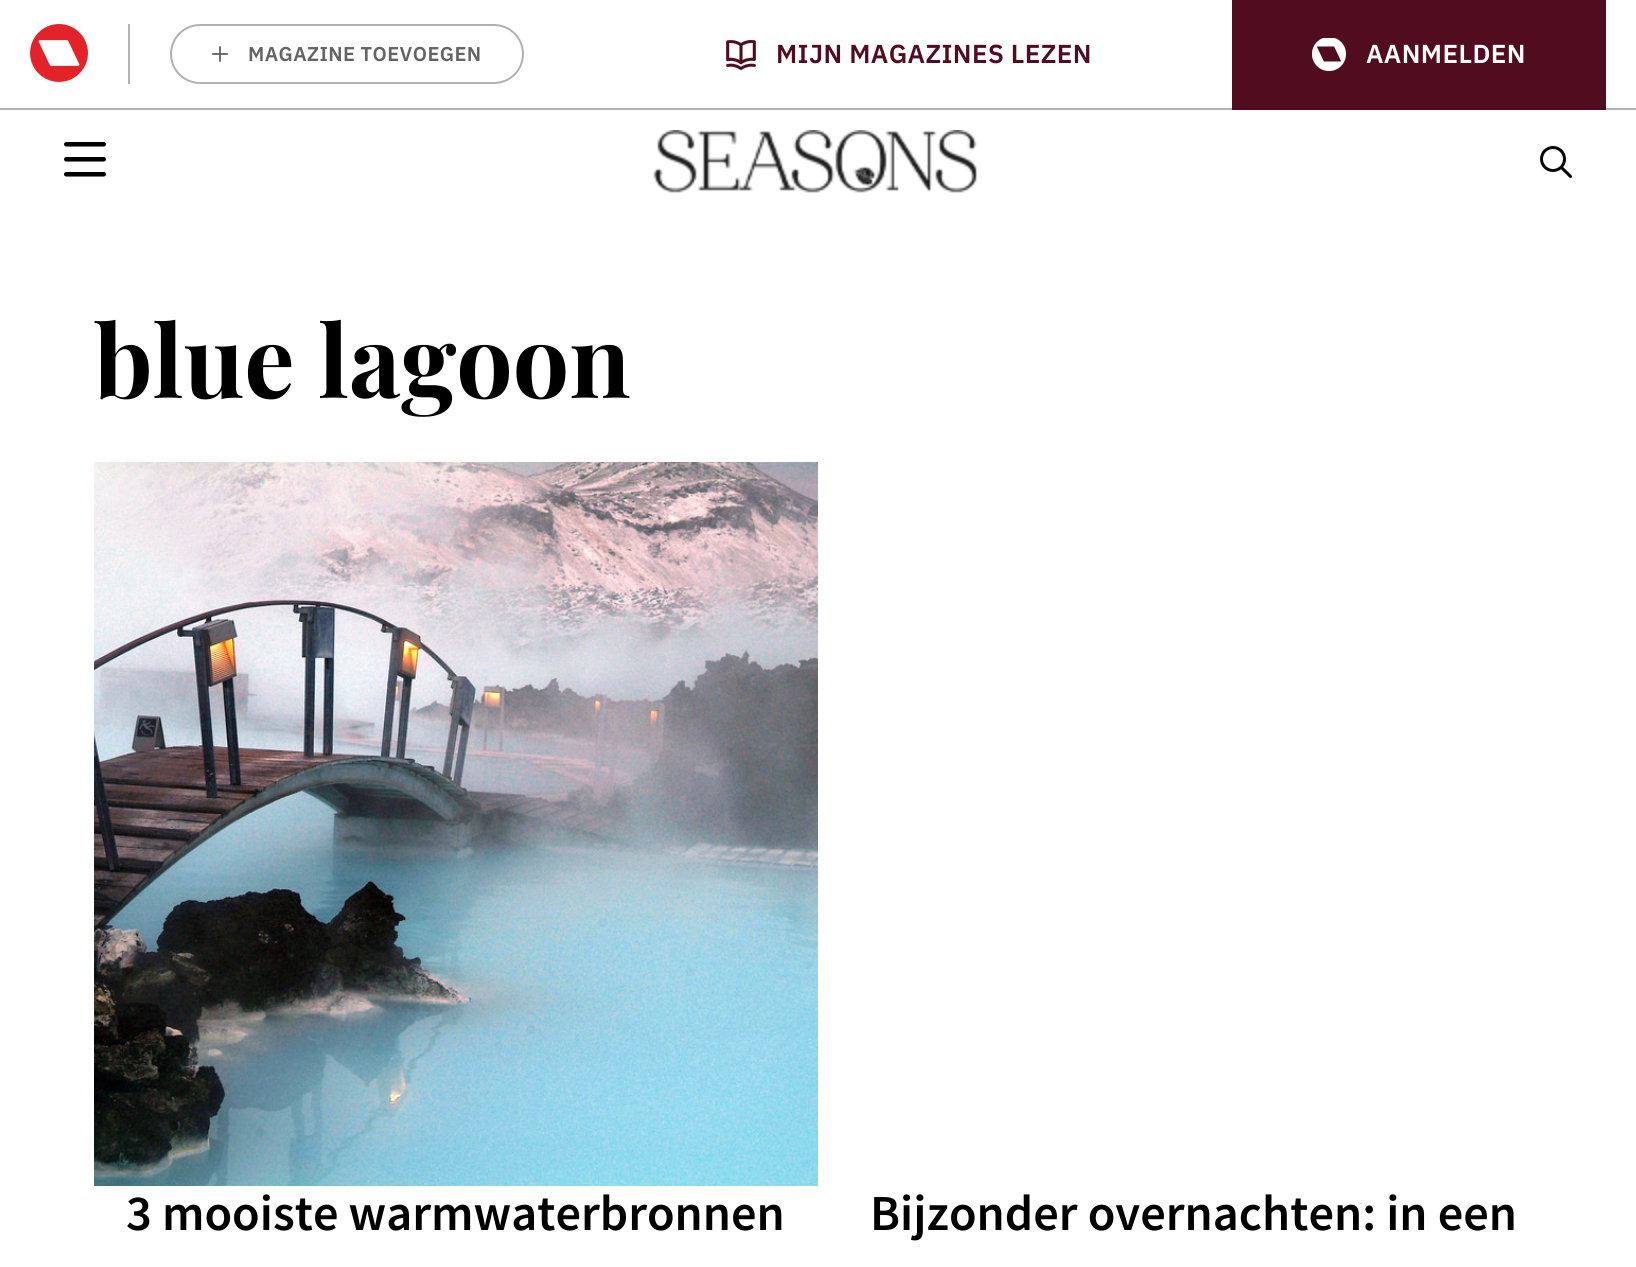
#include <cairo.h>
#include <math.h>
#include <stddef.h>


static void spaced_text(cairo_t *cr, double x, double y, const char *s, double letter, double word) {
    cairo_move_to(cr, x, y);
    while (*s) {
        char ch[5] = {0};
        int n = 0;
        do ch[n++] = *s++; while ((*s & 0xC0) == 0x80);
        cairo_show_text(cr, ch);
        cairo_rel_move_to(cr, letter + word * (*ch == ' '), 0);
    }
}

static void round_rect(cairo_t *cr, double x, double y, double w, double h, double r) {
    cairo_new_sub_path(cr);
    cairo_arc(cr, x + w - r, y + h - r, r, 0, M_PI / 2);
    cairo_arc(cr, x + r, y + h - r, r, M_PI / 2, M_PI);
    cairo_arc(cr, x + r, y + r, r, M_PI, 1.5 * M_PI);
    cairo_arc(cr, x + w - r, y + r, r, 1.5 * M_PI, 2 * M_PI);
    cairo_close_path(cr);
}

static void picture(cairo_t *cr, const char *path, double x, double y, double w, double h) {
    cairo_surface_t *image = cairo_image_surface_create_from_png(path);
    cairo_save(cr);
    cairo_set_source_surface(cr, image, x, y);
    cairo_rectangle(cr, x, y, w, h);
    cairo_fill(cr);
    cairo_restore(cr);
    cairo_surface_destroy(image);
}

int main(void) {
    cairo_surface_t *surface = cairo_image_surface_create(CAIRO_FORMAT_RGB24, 1636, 1267);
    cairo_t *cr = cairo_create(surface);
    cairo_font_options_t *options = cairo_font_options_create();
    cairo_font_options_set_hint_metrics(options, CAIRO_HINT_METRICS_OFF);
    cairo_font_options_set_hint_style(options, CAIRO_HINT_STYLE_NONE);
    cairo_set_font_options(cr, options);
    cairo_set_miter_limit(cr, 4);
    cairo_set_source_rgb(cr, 1, 1, 1);
    cairo_paint(cr);
    cairo_set_source_rgb(cr, 0.698, 0.698, 0.698);
    cairo_rectangle(cr, 0, 108, 1636, 2);
    cairo_fill(cr);
    cairo_set_source_rgb(cr, 0.698, 0.694, 0.694);
    cairo_rectangle(cr, 128, 24, 2, 60);
    cairo_fill(cr);
    picture(cr, "img1.png", 30, 24, 58, 58);
    round_rect(cr, 171, 25, 352, 58, 29);
    cairo_stroke(cr);
    picture(cr, "img2.png", 212, 46, 16, 16);
    cairo_select_font_face(cr, "IBM Plex Sans SemiBold", CAIRO_FONT_SLANT_NORMAL, CAIRO_FONT_WEIGHT_NORMAL);
    cairo_set_font_size(cr, 20);
    cairo_set_source_rgb(cr, 0.392, 0.388, 0.388);
    spaced_text(cr, 248, 61, "MAGAZINE TOEVOEGEN", 0.4, 0);
    picture(cr, "img3.png", 726, 40, 30, 30);
    cairo_set_font_size(cr, 26);
    cairo_set_source_rgb(cr, 0.322, 0.047, 0.125);
    spaced_text(cr, 776, 63, "MIJN MAGAZINES LEZEN", 0.4, 0);
    cairo_rectangle(cr, 1232, 0, 374, 110);
    cairo_fill(cr);
    picture(cr, "img4.png", 1312, 38, 34, 34);
    cairo_set_source_rgb(cr, 1, 1, 1);
    spaced_text(cr, 1366, 63, "AANMELDEN", 0.4, 0);
    picture(cr, "img5.png", 64, 142, 42, 35);
    picture(cr, "img6.png", 653, 130, 324, 63);
    picture(cr, "img7.png", 1540, 146, 32, 32);
    cairo_select_font_face(cr, "Playfair Display", CAIRO_FONT_SLANT_NORMAL, CAIRO_FONT_WEIGHT_BOLD);
    cairo_set_font_size(cr, 100);
    cairo_set_source_rgb(cr, 0, 0, 0);
    cairo_move_to(cr, 94, 398);
    cairo_show_text(cr, "blue lagoon");
    picture(cr, "img8.png", 94, 462, 724, 724);
    cairo_select_font_face(cr, "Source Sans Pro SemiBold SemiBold", CAIRO_FONT_SLANT_NORMAL, CAIRO_FONT_WEIGHT_NORMAL);
    cairo_set_font_size(cr, 50.4);
    cairo_move_to(cr, 126, 1230);
    cairo_show_text(cr, "3 mooiste warmwaterbronnen");
    cairo_move_to(cr, 870, 1230);
    cairo_show_text(cr, "Bijzonder overnachten: in een");
    cairo_surface_write_to_png(surface, "page.png");
    cairo_font_options_destroy(options);
    cairo_destroy(cr);
    cairo_surface_destroy(surface);
    return 0;
}
